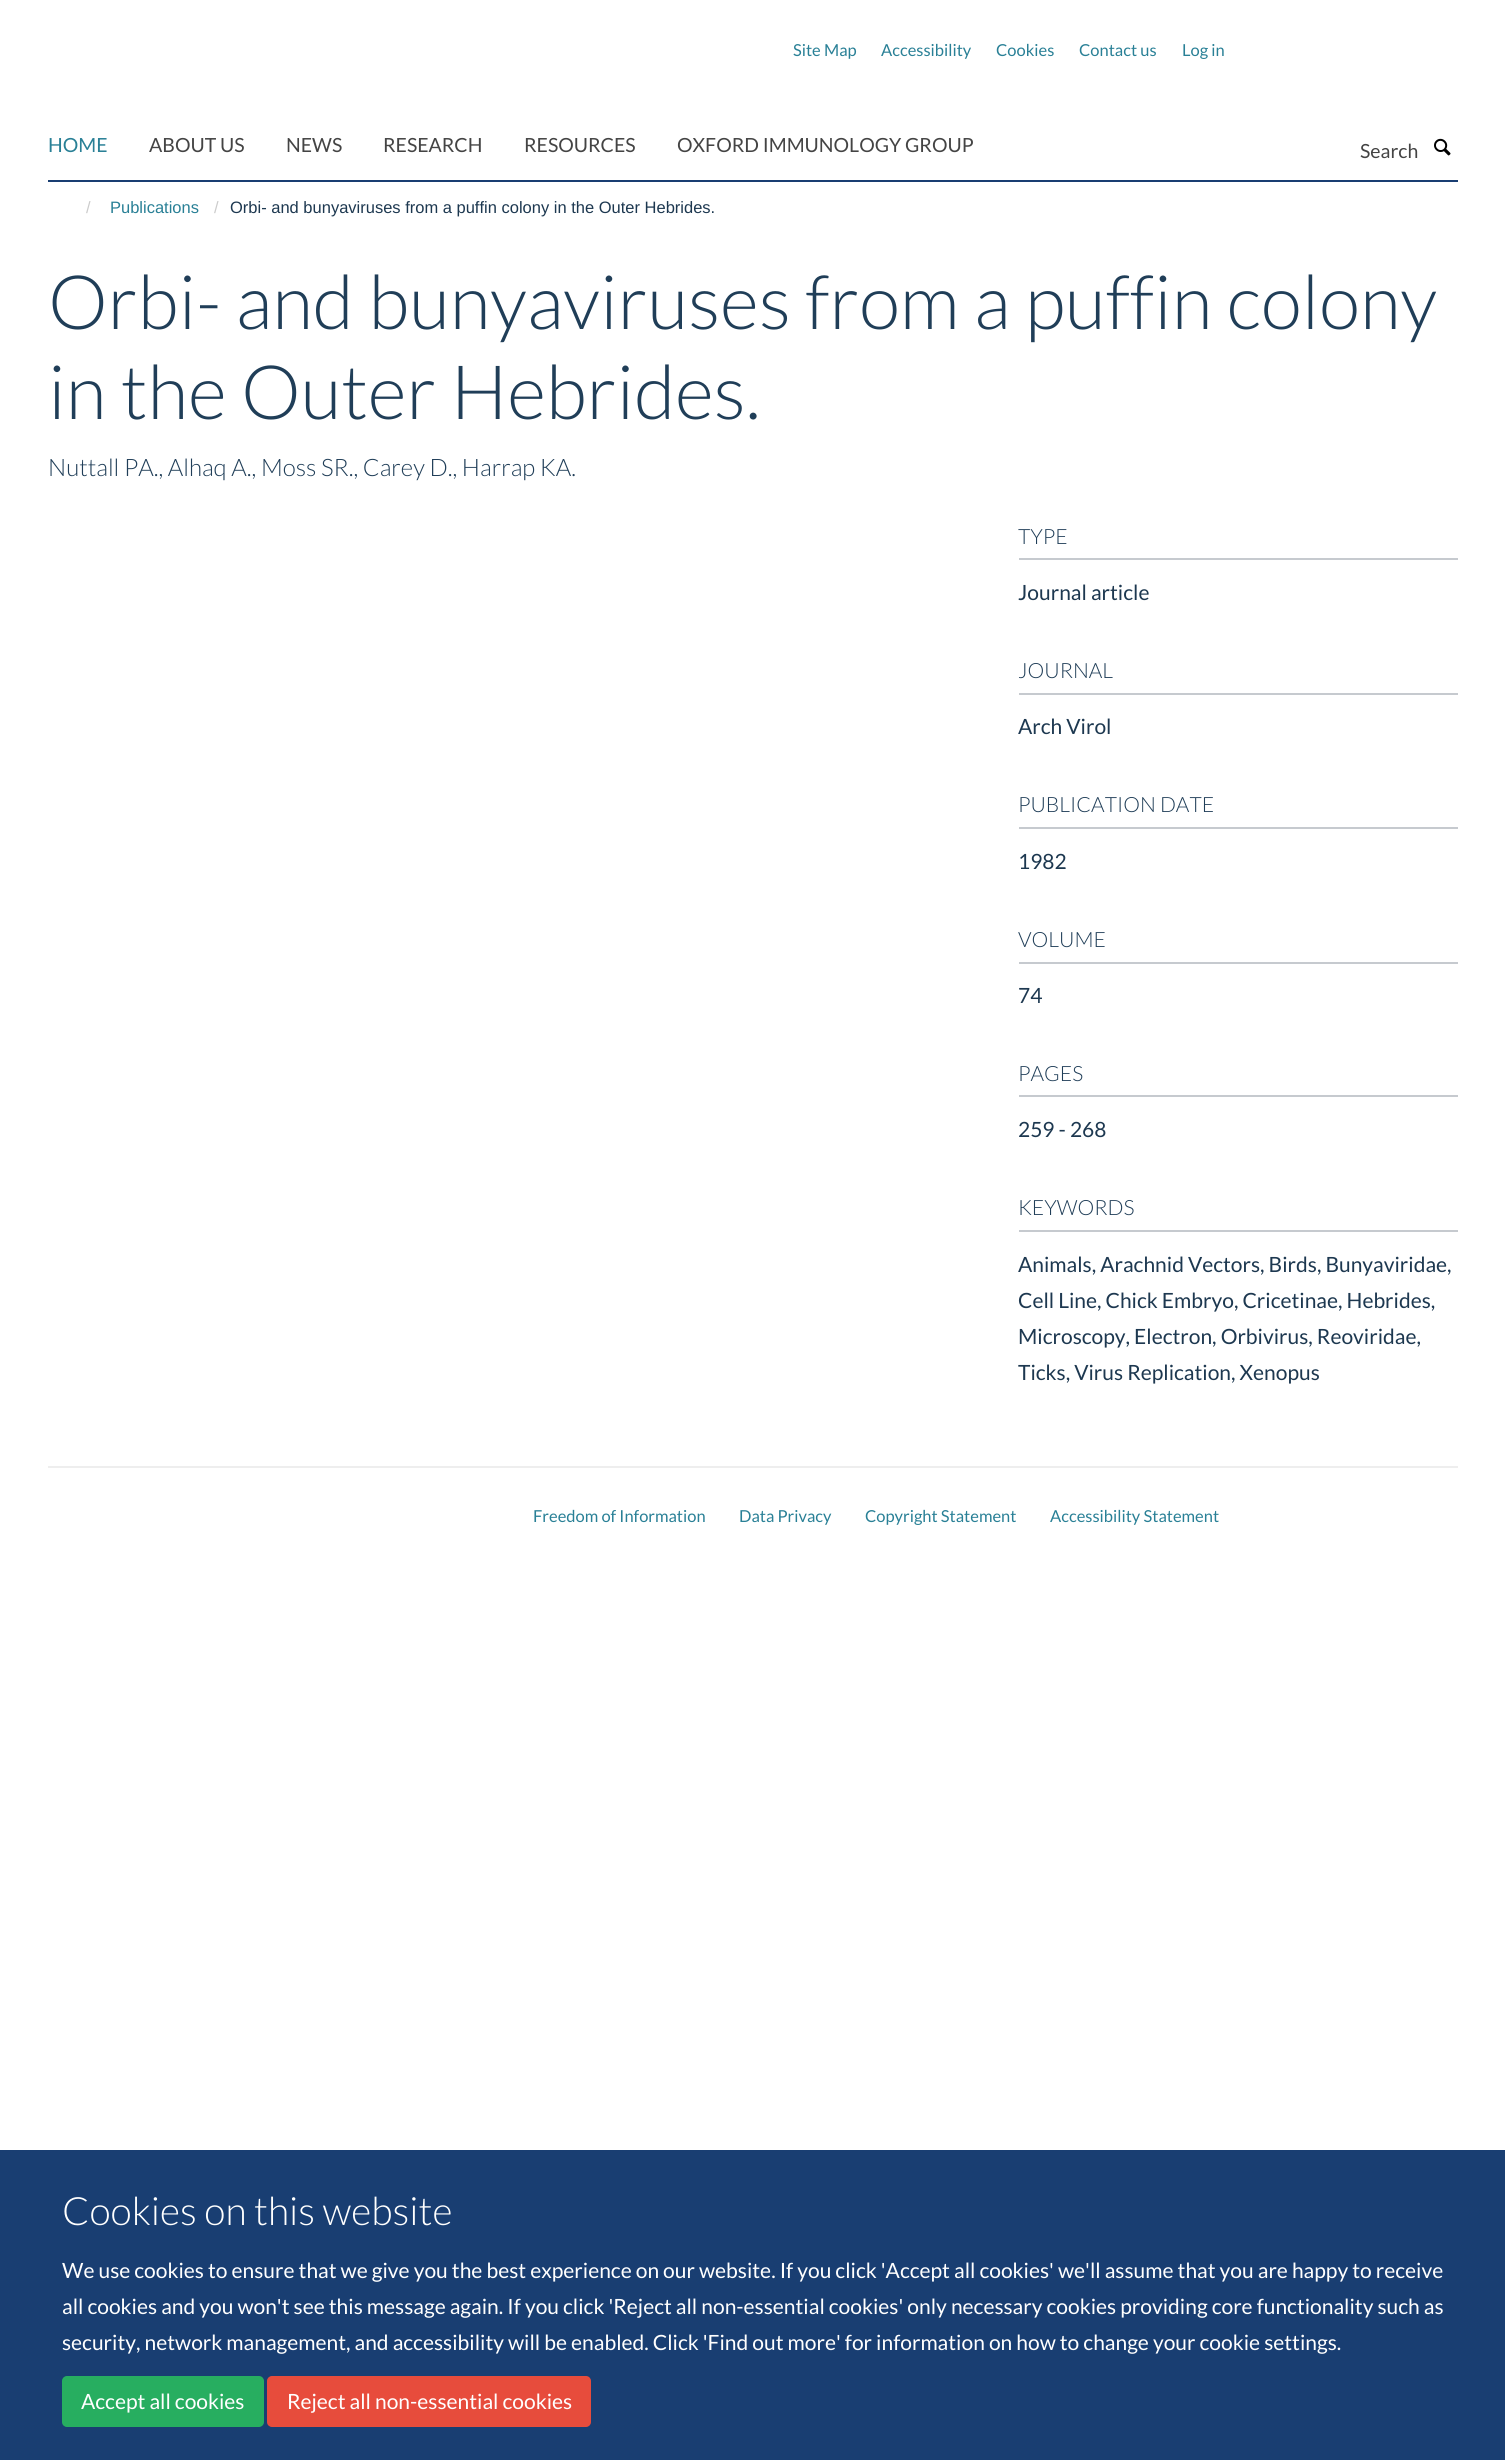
#include <cairo.h>
#include <math.h>
#include <stddef.h>


static void round_rect(cairo_t *cr, double x, double y, double w, double h, double r) {
    cairo_new_sub_path(cr);
    cairo_arc(cr, x + w - r, y + h - r, r, 0, M_PI / 2);
    cairo_arc(cr, x + r, y + h - r, r, M_PI / 2, M_PI);
    cairo_arc(cr, x + r, y + r, r, M_PI, 1.5 * M_PI);
    cairo_arc(cr, x + w - r, y + r, r, 1.5 * M_PI, 2 * M_PI);
    cairo_close_path(cr);
}

static void picture(cairo_t *cr, const char *path, double x, double y, double w, double h) {
    cairo_surface_t *image = cairo_image_surface_create_from_png(path);
    cairo_save(cr);
    cairo_set_source_surface(cr, image, x, y);
    cairo_rectangle(cr, x, y, w, h);
    cairo_fill(cr);
    cairo_restore(cr);
    cairo_surface_destroy(image);
}

int main(void) {
    cairo_surface_t *surface = cairo_image_surface_create(CAIRO_FORMAT_RGB24, 1505, 2460);
    cairo_t *cr = cairo_create(surface);
    cairo_font_options_t *options = cairo_font_options_create();
    cairo_font_options_set_hint_metrics(options, CAIRO_HINT_METRICS_OFF);
    cairo_font_options_set_hint_style(options, CAIRO_HINT_STYLE_NONE);
    cairo_set_font_options(cr, options);
    cairo_set_miter_limit(cr, 4);
    cairo_set_source_rgb(cr, 1, 1, 1);
    cairo_paint(cr);
    cairo_select_font_face(cr, "Lato", CAIRO_FONT_SLANT_NORMAL, CAIRO_FONT_WEIGHT_NORMAL);
    cairo_set_font_size(cr, 16.5);
    cairo_set_source_rgb(cr, 0.161, 0.502, 0.588);
    cairo_move_to(cr, 793, 56);
    cairo_show_text(cr, "Site Map");
    cairo_move_to(cr, 881, 56);
    cairo_show_text(cr, "Accessibility");
    cairo_move_to(cr, 996, 56);
    cairo_show_text(cr, "Cookies");
    cairo_move_to(cr, 1079, 56);
    cairo_show_text(cr, "Contact us");
    cairo_move_to(cr, 1182, 56);
    cairo_show_text(cr, "Log in");
    cairo_set_source_rgb(cr, 0.098, 0.243, 0.447);
    cairo_rectangle(cr, 48, 180, 1410, 2);
    cairo_fill(cr);
    cairo_set_font_size(cr, 19.5);
    cairo_set_source_rgb(cr, 0.161, 0.502, 0.588);
    cairo_move_to(cr, 48, 152);
    cairo_show_text(cr, "HOME");
    cairo_set_source_rgb(cr, 0.267, 0.267, 0.267);
    cairo_move_to(cr, 149, 152);
    cairo_show_text(cr, "ABOUT US");
    cairo_move_to(cr, 286, 152);
    cairo_show_text(cr, "NEWS");
    cairo_move_to(cr, 383, 152);
    cairo_show_text(cr, "RESEARCH");
    cairo_move_to(cr, 524, 152);
    cairo_show_text(cr, "RESOURCES");
    cairo_move_to(cr, 677, 152);
    cairo_show_text(cr, "OXFORD IMMUNOLOGY GROUP");
    cairo_move_to(cr, 1360, 158);
    cairo_show_text(cr, "Search");
    picture(cr, "img1.png", 1434, 138, 17, 18);
    cairo_select_font_face(cr, "Liberation Sans", CAIRO_FONT_SLANT_NORMAL, CAIRO_FONT_WEIGHT_NORMAL);
    cairo_set_font_size(cr, 16.5);
    cairo_set_source_rgb(cr, 0.8, 0.8, 0.8);
    cairo_move_to(cr, 86, 213);
    cairo_show_text(cr, "/");
    cairo_set_source_rgb(cr, 0.161, 0.502, 0.588);
    cairo_move_to(cr, 110, 213);
    cairo_show_text(cr, "Publications");
    cairo_set_source_rgb(cr, 0.8, 0.8, 0.8);
    cairo_move_to(cr, 214, 213);
    cairo_show_text(cr, "/");
    cairo_set_source_rgb(cr, 0.114, 0.22, 0.314);
    cairo_move_to(cr, 230, 213);
    cairo_show_text(cr, "Orbi- and bunyaviruses from a puffin colony in the Outer Hebrides.");
    cairo_select_font_face(cr, "Lato Light", CAIRO_FONT_SLANT_NORMAL, CAIRO_FONT_WEIGHT_NORMAL);
    cairo_set_font_size(cr, 75);
    cairo_set_source_rgb(cr, 0.125, 0.243, 0.345);
    cairo_move_to(cr, 48, 329);
    cairo_show_text(cr, "Orbi- and bunyaviruses from a puffin colony");
    cairo_move_to(cr, 48, 419);
    cairo_show_text(cr, "in the Outer Hebrides.");
    cairo_set_font_size(cr, 24);
    cairo_move_to(cr, 48, 476);
    cairo_show_text(cr, "Nuttall PA., Alhaq A., Moss SR., Carey D., Harrap KA.");
    cairo_set_source_rgb(cr, 0.776, 0.792, 0.812);
    cairo_rectangle(cr, 1019, 558, 439, 2);
    cairo_fill(cr);
    cairo_set_font_size(cr, 21);
    cairo_set_source_rgb(cr, 0.125, 0.243, 0.345);
    cairo_move_to(cr, 1018, 544);
    cairo_show_text(cr, "TYPE");
    cairo_select_font_face(cr, "Lato", CAIRO_FONT_SLANT_NORMAL, CAIRO_FONT_WEIGHT_NORMAL);
    cairo_set_source_rgb(cr, 0.114, 0.22, 0.314);
    cairo_move_to(cr, 1018, 600);
    cairo_show_text(cr, "Journal article");
    cairo_set_source_rgb(cr, 0.776, 0.792, 0.812);
    cairo_rectangle(cr, 1019, 693, 439, 2);
    cairo_fill(cr);
    cairo_select_font_face(cr, "Lato Light", CAIRO_FONT_SLANT_NORMAL, CAIRO_FONT_WEIGHT_NORMAL);
    cairo_set_source_rgb(cr, 0.125, 0.243, 0.345);
    cairo_move_to(cr, 1018, 678);
    cairo_show_text(cr, "JOURNAL");
    cairo_select_font_face(cr, "Lato", CAIRO_FONT_SLANT_NORMAL, CAIRO_FONT_WEIGHT_NORMAL);
    cairo_set_source_rgb(cr, 0.114, 0.22, 0.314);
    cairo_move_to(cr, 1018, 734);
    cairo_show_text(cr, "Arch Virol");
    cairo_set_source_rgb(cr, 0.776, 0.792, 0.812);
    cairo_rectangle(cr, 1019, 827, 439, 2);
    cairo_fill(cr);
    cairo_select_font_face(cr, "Lato Light", CAIRO_FONT_SLANT_NORMAL, CAIRO_FONT_WEIGHT_NORMAL);
    cairo_set_source_rgb(cr, 0.125, 0.243, 0.345);
    cairo_move_to(cr, 1018, 812);
    cairo_show_text(cr, "PUBLICATION DATE");
    cairo_select_font_face(cr, "Lato", CAIRO_FONT_SLANT_NORMAL, CAIRO_FONT_WEIGHT_NORMAL);
    cairo_set_source_rgb(cr, 0.114, 0.22, 0.314);
    cairo_move_to(cr, 1018, 869);
    cairo_show_text(cr, "1982");
    cairo_set_source_rgb(cr, 0.776, 0.792, 0.812);
    cairo_rectangle(cr, 1019, 962, 439, 2);
    cairo_fill(cr);
    cairo_select_font_face(cr, "Lato Light", CAIRO_FONT_SLANT_NORMAL, CAIRO_FONT_WEIGHT_NORMAL);
    cairo_set_source_rgb(cr, 0.125, 0.243, 0.345);
    cairo_move_to(cr, 1018, 947);
    cairo_show_text(cr, "VOLUME");
    cairo_select_font_face(cr, "Lato", CAIRO_FONT_SLANT_NORMAL, CAIRO_FONT_WEIGHT_NORMAL);
    cairo_set_source_rgb(cr, 0.114, 0.22, 0.314);
    cairo_move_to(cr, 1018, 1003);
    cairo_show_text(cr, "74");
    cairo_set_source_rgb(cr, 0.776, 0.792, 0.812);
    cairo_rectangle(cr, 1019, 1095, 439, 2);
    cairo_fill(cr);
    cairo_select_font_face(cr, "Lato Light", CAIRO_FONT_SLANT_NORMAL, CAIRO_FONT_WEIGHT_NORMAL);
    cairo_set_source_rgb(cr, 0.125, 0.243, 0.345);
    cairo_move_to(cr, 1018, 1081);
    cairo_show_text(cr, "PAGES");
    cairo_select_font_face(cr, "Lato", CAIRO_FONT_SLANT_NORMAL, CAIRO_FONT_WEIGHT_NORMAL);
    cairo_set_source_rgb(cr, 0.114, 0.22, 0.314);
    cairo_move_to(cr, 1018, 1137);
    cairo_show_text(cr, "259 - 268");
    cairo_set_source_rgb(cr, 0.776, 0.792, 0.812);
    cairo_rectangle(cr, 1019, 1230, 439, 2);
    cairo_fill(cr);
    cairo_select_font_face(cr, "Lato Light", CAIRO_FONT_SLANT_NORMAL, CAIRO_FONT_WEIGHT_NORMAL);
    cairo_set_source_rgb(cr, 0.125, 0.243, 0.345);
    cairo_move_to(cr, 1018, 1215);
    cairo_show_text(cr, "KEYWORDS");
    cairo_select_font_face(cr, "Lato", CAIRO_FONT_SLANT_NORMAL, CAIRO_FONT_WEIGHT_NORMAL);
    cairo_set_source_rgb(cr, 0.114, 0.22, 0.314);
    cairo_move_to(cr, 1018, 1272);
    cairo_show_text(cr, "Animals, Arachnid Vectors, Birds, Bunyaviridae,");
    cairo_move_to(cr, 1018, 1308);
    cairo_show_text(cr, "Cell Line, Chick Embryo, Cricetinae, Hebrides,");
    cairo_move_to(cr, 1018, 1344);
    cairo_show_text(cr, "Microscopy, Electron, Orbivirus, Reoviridae,");
    cairo_move_to(cr, 1018, 1380);
    cairo_show_text(cr, "Ticks, Virus Replication, Xenopus");
    cairo_set_source_rgb(cr, 0.933, 0.933, 0.933);
    cairo_rectangle(cr, 48, 1466, 1410, 2);
    cairo_fill(cr);
    cairo_set_font_size(cr, 16.5);
    cairo_set_source_rgb(cr, 0.161, 0.502, 0.588);
    cairo_move_to(cr, 533, 1522);
    cairo_show_text(cr, "Freedom of Information");
    cairo_move_to(cr, 739, 1522);
    cairo_show_text(cr, "Data Privacy");
    cairo_move_to(cr, 865, 1522);
    cairo_show_text(cr, "Copyright Statement");
    cairo_move_to(cr, 1050, 1522);
    cairo_show_text(cr, "Accessibility Statement");
    cairo_set_source_rgb(cr, 0.098, 0.243, 0.447);
    cairo_rectangle(cr, 0, 2150, 1505, 310);
    cairo_fill(cr);
    cairo_select_font_face(cr, "Lato Light", CAIRO_FONT_SLANT_NORMAL, CAIRO_FONT_WEIGHT_NORMAL);
    cairo_set_font_size(cr, 39);
    cairo_set_source_rgb(cr, 1, 1, 1);
    cairo_move_to(cr, 62, 2225);
    cairo_show_text(cr, "Cookies on this website");
    cairo_select_font_face(cr, "Lato", CAIRO_FONT_SLANT_NORMAL, CAIRO_FONT_WEIGHT_NORMAL);
    cairo_set_font_size(cr, 21);
    cairo_move_to(cr, 62, 2278);
    cairo_show_text(cr, "We use cookies to ensure that we give you the best experience on our website. If you click 'Accept all cookies' we'll assume that you are happy to receive");
    cairo_move_to(cr, 62, 2314);
    cairo_show_text(cr, "all cookies and you won't see this message again. If you click 'Reject all non-essential cookies' only necessary cookies providing core functionality such as");
    cairo_move_to(cr, 62, 2350);
    cairo_show_text(cr, "security, network management, and accessibility will be enabled. Click 'Find out more' for information on how to change your cookie settings.");
    cairo_set_source_rgb(cr, 0.153, 0.682, 0.376);
    round_rect(cr, 63, 2377, 200, 49, 4);
    cairo_fill_preserve(cr);
    cairo_stroke(cr);
    cairo_set_source_rgb(cr, 1, 1, 1);
    cairo_move_to(cr, 81, 2409);
    cairo_show_text(cr, "Accept all cookies");
    cairo_set_source_rgb(cr, 0.906, 0.298, 0.235);
    round_rect(cr, 268, 2377, 322, 49, 4);
    cairo_fill_preserve(cr);
    cairo_stroke(cr);
    cairo_set_source_rgb(cr, 1, 1, 1);
    cairo_move_to(cr, 287, 2409);
    cairo_show_text(cr, "Reject all non-essential cookies");
    cairo_surface_write_to_png(surface, "page.png");
    cairo_font_options_destroy(options);
    cairo_destroy(cr);
    cairo_surface_destroy(surface);
    return 0;
}
